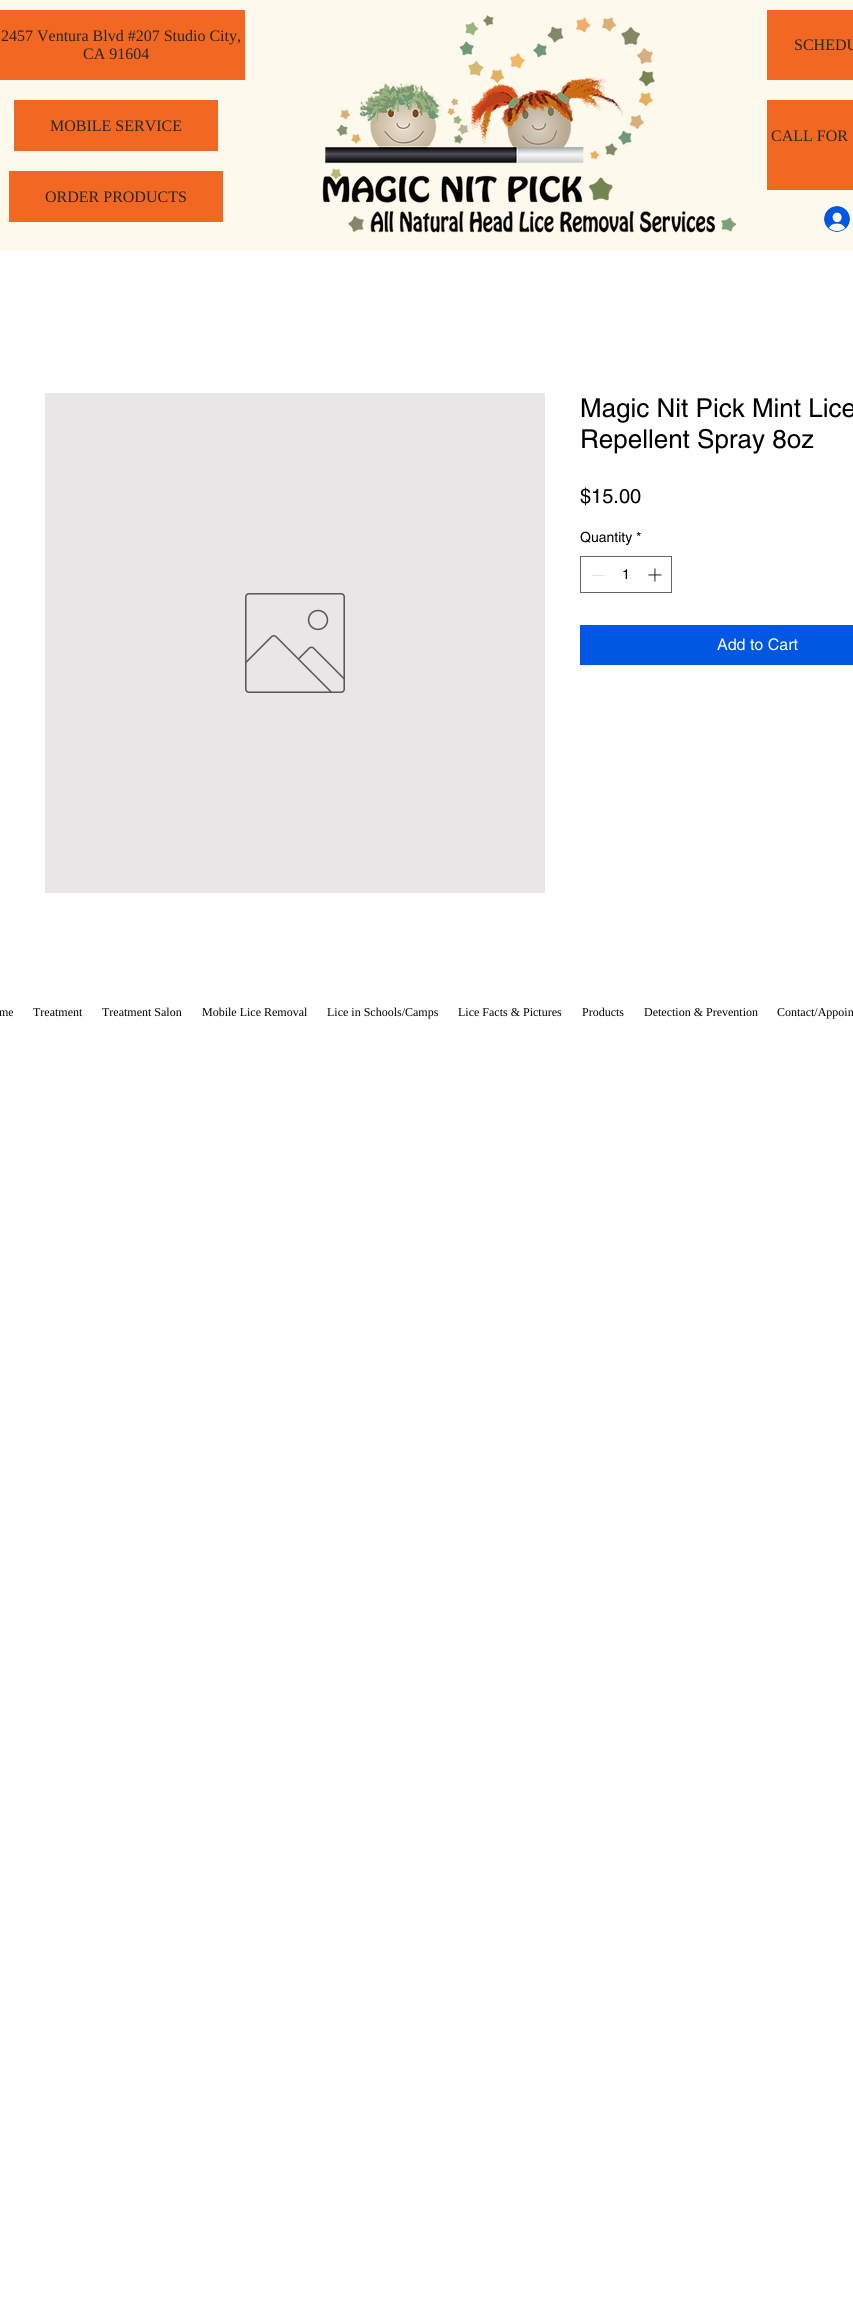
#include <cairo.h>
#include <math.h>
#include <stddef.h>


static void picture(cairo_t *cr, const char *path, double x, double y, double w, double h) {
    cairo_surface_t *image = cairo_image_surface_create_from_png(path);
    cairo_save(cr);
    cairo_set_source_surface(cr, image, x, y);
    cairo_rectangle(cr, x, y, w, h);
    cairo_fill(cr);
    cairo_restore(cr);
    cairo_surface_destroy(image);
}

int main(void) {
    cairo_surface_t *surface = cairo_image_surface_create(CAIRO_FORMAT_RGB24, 853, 2319);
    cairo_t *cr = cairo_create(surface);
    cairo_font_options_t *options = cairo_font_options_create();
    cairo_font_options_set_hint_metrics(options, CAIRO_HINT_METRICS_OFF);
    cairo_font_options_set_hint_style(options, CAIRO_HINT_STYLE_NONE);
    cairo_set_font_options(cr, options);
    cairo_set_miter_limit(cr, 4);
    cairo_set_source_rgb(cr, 1, 1, 1);
    cairo_paint(cr);
    cairo_set_source_rgb(cr, 0.992, 0.976, 0.929);
    cairo_rectangle(cr, 0, 0, 853, 251);
    cairo_fill(cr);
    cairo_set_source_rgb(cr, 0.949, 0.404, 0.133);
    cairo_rectangle(cr, 0, 10, 245, 70);
    cairo_fill(cr);
    cairo_select_font_face(cr, "Liberation Serif", CAIRO_FONT_SLANT_NORMAL, CAIRO_FONT_WEIGHT_NORMAL);
    cairo_set_font_size(cr, 16);
    cairo_set_source_rgb(cr, 0.153, 0.153, 0.153);
    cairo_move_to(cr, 1, 41);
    cairo_show_text(cr, "2457 Ventura Blvd #207 Studio City,");
    cairo_move_to(cr, 83, 59);
    cairo_show_text(cr, "CA 91604");
    cairo_set_source_rgb(cr, 0.949, 0.404, 0.133);
    cairo_rectangle(cr, 14, 100, 204, 51);
    cairo_fill(cr);
    cairo_set_source_rgb(cr, 0.153, 0.153, 0.153);
    cairo_move_to(cr, 50, 131);
    cairo_show_text(cr, "MOBILE SERVICE");
    cairo_set_source_rgb(cr, 0.949, 0.404, 0.133);
    cairo_rectangle(cr, 9, 171, 214, 51);
    cairo_fill(cr);
    cairo_set_source_rgb(cr, 0.153, 0.153, 0.153);
    cairo_move_to(cr, 45, 202);
    cairo_show_text(cr, "ORDER PRODUCTS");
    picture(cr, "img1.png", 322, 15, 415, 218);
    cairo_set_source_rgb(cr, 0.949, 0.404, 0.133);
    cairo_rectangle(cr, 767, 10, 86, 70);
    cairo_fill(cr);
    cairo_set_source_rgb(cr, 0.153, 0.153, 0.153);
    cairo_move_to(cr, 794, 50);
    cairo_show_text(cr, "SCHEDU");
    cairo_set_source_rgb(cr, 0.949, 0.404, 0.133);
    cairo_rectangle(cr, 767, 100, 86, 90);
    cairo_fill(cr);
    cairo_set_source_rgb(cr, 0.153, 0.153, 0.153);
    cairo_move_to(cr, 771, 141);
    cairo_show_text(cr, "CALL FOR");
    picture(cr, "img2.png", 824, 206, 26, 26);
    cairo_set_source_rgb(cr, 0.91, 0.902, 0.902);
    cairo_rectangle(cr, 45, 393, 500, 500);
    cairo_fill(cr);
    picture(cr, "img3.png", 245, 593, 100, 100);
    cairo_select_font_face(cr, "helvetica", CAIRO_FONT_SLANT_NORMAL, CAIRO_FONT_WEIGHT_NORMAL);
    cairo_set_font_size(cr, 26);
    cairo_set_source_rgb(cr, 0, 0, 0);
    cairo_move_to(cr, 580, 417);
    cairo_show_text(cr, "Magic Nit Pick Mint Lice");
    cairo_move_to(cr, 580, 448);
    cairo_show_text(cr, "Repellent Spray 8oz");
    cairo_set_font_size(cr, 20);
    cairo_move_to(cr, 580, 503);
    cairo_show_text(cr, "$15.00");
    cairo_set_font_size(cr, 14);
    cairo_move_to(cr, 580, 542);
    cairo_show_text(cr, "Quantity *");
    cairo_rectangle(cr, 580.5, 556.5, 91, 36);
    cairo_set_source_rgb(cr, 0.4, 0.4, 0.4);
    cairo_set_line_width(cr, 1);
    cairo_stroke(cr);
    cairo_set_source_rgb(cr, 0.89, 0.89, 0.89);
    cairo_rectangle(cr, 592, 575, 13, 1);
    cairo_fill(cr);
    cairo_set_source_rgb(cr, 0, 0, 0);
    cairo_move_to(cr, 622, 579);
    cairo_show_text(cr, "1");
    picture(cr, "img4.png", 648, 568, 14, 14);
    cairo_set_source_rgb(cr, 0, 0.341, 0.882);
    cairo_rectangle(cr, 580, 625, 273, 40);
    cairo_fill(cr);
    cairo_set_font_size(cr, 16);
    cairo_set_source_rgb(cr, 1, 1, 1);
    cairo_move_to(cr, 717, 650);
    cairo_show_text(cr, "Add to Cart");
    cairo_select_font_face(cr, "Liberation Serif", CAIRO_FONT_SLANT_NORMAL, CAIRO_FONT_WEIGHT_NORMAL);
    cairo_set_font_size(cr, 12);
    cairo_set_source_rgb(cr, 0, 0, 0);
    cairo_move_to(cr, -1, 1016);
    cairo_show_text(cr, "me");
    cairo_move_to(cr, 33, 1016);
    cairo_show_text(cr, "Treatment");
    cairo_move_to(cr, 102, 1016);
    cairo_show_text(cr, "Treatment Salon");
    cairo_move_to(cr, 202, 1016);
    cairo_show_text(cr, "Mobile Lice Removal");
    cairo_move_to(cr, 327, 1016);
    cairo_show_text(cr, "Lice in Schools/Camps");
    cairo_move_to(cr, 458, 1016);
    cairo_show_text(cr, "Lice Facts & Pictures");
    cairo_move_to(cr, 582, 1016);
    cairo_show_text(cr, "Products");
    cairo_move_to(cr, 644, 1016);
    cairo_show_text(cr, "Detection & Prevention");
    cairo_move_to(cr, 777, 1016);
    cairo_show_text(cr, "Contact/Appoin");
    cairo_surface_write_to_png(surface, "page.png");
    cairo_font_options_destroy(options);
    cairo_destroy(cr);
    cairo_surface_destroy(surface);
    return 0;
}
